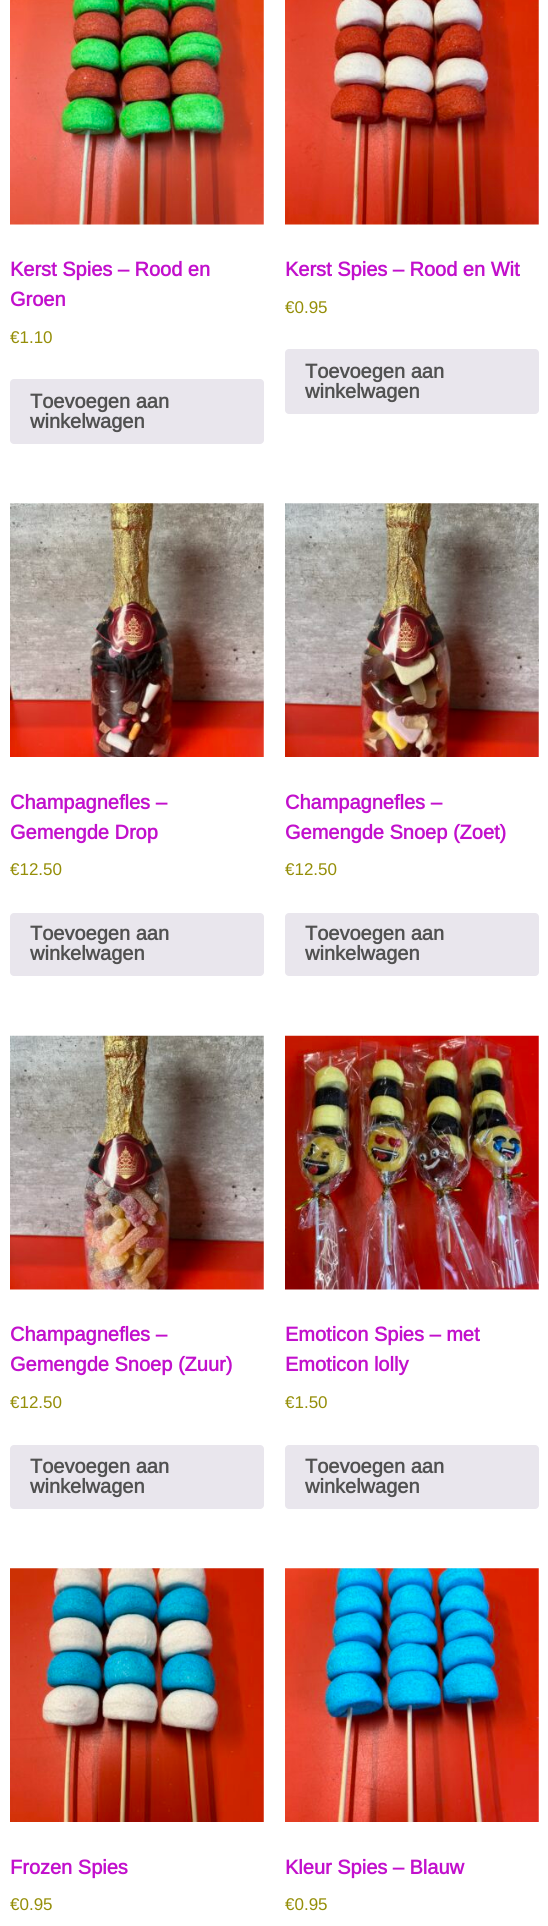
#include <cairo.h>
#include <math.h>
#include <stddef.h>


static void round_rect(cairo_t *cr, double x, double y, double w, double h, double r) {
    cairo_new_sub_path(cr);
    cairo_arc(cr, x + w - r, y + h - r, r, 0, M_PI / 2);
    cairo_arc(cr, x + r, y + h - r, r, M_PI / 2, M_PI);
    cairo_arc(cr, x + r, y + r, r, M_PI, 1.5 * M_PI);
    cairo_arc(cr, x + w - r, y + r, r, 1.5 * M_PI, 2 * M_PI);
    cairo_close_path(cr);
}

static void picture(cairo_t *cr, const char *path, double x, double y, double w, double h) {
    cairo_surface_t *image = cairo_image_surface_create_from_png(path);
    cairo_save(cr);
    cairo_set_source_surface(cr, image, x, y);
    cairo_rectangle(cr, x, y, w, h);
    cairo_fill(cr);
    cairo_restore(cr);
    cairo_surface_destroy(image);
}

int main(void) {
    cairo_surface_t *surface = cairo_image_surface_create(CAIRO_FORMAT_RGB24, 548, 1926);
    cairo_t *cr = cairo_create(surface);
    cairo_font_options_t *options = cairo_font_options_create();
    cairo_font_options_set_hint_metrics(options, CAIRO_HINT_METRICS_OFF);
    cairo_font_options_set_hint_style(options, CAIRO_HINT_STYLE_NONE);
    cairo_set_font_options(cr, options);
    cairo_set_miter_limit(cr, 4);
    cairo_set_source_rgb(cr, 1, 1, 1);
    cairo_paint(cr);
    picture(cr, "img1.png", 10, 0, 254, 225);
    cairo_select_font_face(cr, "Arimo", CAIRO_FONT_SLANT_NORMAL, CAIRO_FONT_WEIGHT_BOLD);
    cairo_set_font_size(cr, 20);
    cairo_set_source_rgb(cr, 0.761, 0.063, 0.8);
    cairo_move_to(cr, 10, 276);
    cairo_show_text(cr, "Kerst Spies – Rood en");
    cairo_move_to(cr, 10, 306);
    cairo_show_text(cr, "Groen");
    cairo_select_font_face(cr, "Arimo", CAIRO_FONT_SLANT_NORMAL, CAIRO_FONT_WEIGHT_NORMAL);
    cairo_set_font_size(cr, 17);
    cairo_set_source_rgb(cr, 0.584, 0.557, 0.035);
    cairo_move_to(cr, 10, 343);
    cairo_show_text(cr, "€1.10");
    cairo_set_source_rgb(cr, 0.914, 0.902, 0.929);
    round_rect(cr, 10, 379, 254, 65, 4);
    cairo_fill(cr);
    cairo_select_font_face(cr, "Arimo", CAIRO_FONT_SLANT_NORMAL, CAIRO_FONT_WEIGHT_BOLD);
    cairo_set_font_size(cr, 20);
    cairo_set_source_rgb(cr, 0.318, 0.318, 0.318);
    cairo_move_to(cr, 30, 408);
    cairo_show_text(cr, "Toevoegen aan");
    cairo_move_to(cr, 30, 428);
    cairo_show_text(cr, "winkelwagen");
    picture(cr, "img2.png", 285, 0, 254, 225);
    cairo_set_source_rgb(cr, 0.761, 0.063, 0.8);
    cairo_move_to(cr, 285, 276);
    cairo_show_text(cr, "Kerst Spies – Rood en Wit");
    cairo_select_font_face(cr, "Arimo", CAIRO_FONT_SLANT_NORMAL, CAIRO_FONT_WEIGHT_NORMAL);
    cairo_set_font_size(cr, 17);
    cairo_set_source_rgb(cr, 0.584, 0.557, 0.035);
    cairo_move_to(cr, 285, 313);
    cairo_show_text(cr, "€0.95");
    cairo_set_source_rgb(cr, 0.914, 0.902, 0.929);
    round_rect(cr, 285, 349, 254, 65, 4);
    cairo_fill(cr);
    cairo_select_font_face(cr, "Arimo", CAIRO_FONT_SLANT_NORMAL, CAIRO_FONT_WEIGHT_BOLD);
    cairo_set_font_size(cr, 20);
    cairo_set_source_rgb(cr, 0.318, 0.318, 0.318);
    cairo_move_to(cr, 305, 378);
    cairo_show_text(cr, "Toevoegen aan");
    cairo_move_to(cr, 305, 398);
    cairo_show_text(cr, "winkelwagen");
    picture(cr, "img3.png", 10, 503, 254, 254);
    cairo_set_source_rgb(cr, 0.761, 0.063, 0.8);
    cairo_move_to(cr, 10, 809);
    cairo_show_text(cr, "Champagnefles –");
    cairo_move_to(cr, 10, 839);
    cairo_show_text(cr, "Gemengde Drop");
    cairo_select_font_face(cr, "Arimo", CAIRO_FONT_SLANT_NORMAL, CAIRO_FONT_WEIGHT_NORMAL);
    cairo_set_font_size(cr, 17);
    cairo_set_source_rgb(cr, 0.584, 0.557, 0.035);
    cairo_move_to(cr, 10, 875);
    cairo_show_text(cr, "€12.50");
    cairo_set_source_rgb(cr, 0.914, 0.902, 0.929);
    round_rect(cr, 10, 913, 254, 63, 4);
    cairo_fill(cr);
    cairo_select_font_face(cr, "Arimo", CAIRO_FONT_SLANT_NORMAL, CAIRO_FONT_WEIGHT_BOLD);
    cairo_set_font_size(cr, 20);
    cairo_set_source_rgb(cr, 0.318, 0.318, 0.318);
    cairo_move_to(cr, 30, 940);
    cairo_show_text(cr, "Toevoegen aan");
    cairo_move_to(cr, 30, 960);
    cairo_show_text(cr, "winkelwagen");
    picture(cr, "img4.png", 285, 503, 254, 254);
    cairo_set_source_rgb(cr, 0.761, 0.063, 0.8);
    cairo_move_to(cr, 285, 809);
    cairo_show_text(cr, "Champagnefles –");
    cairo_move_to(cr, 285, 839);
    cairo_show_text(cr, "Gemengde Snoep (Zoet)");
    cairo_select_font_face(cr, "Arimo", CAIRO_FONT_SLANT_NORMAL, CAIRO_FONT_WEIGHT_NORMAL);
    cairo_set_font_size(cr, 17);
    cairo_set_source_rgb(cr, 0.584, 0.557, 0.035);
    cairo_move_to(cr, 285, 875);
    cairo_show_text(cr, "€12.50");
    cairo_set_source_rgb(cr, 0.914, 0.902, 0.929);
    round_rect(cr, 285, 913, 254, 63, 4);
    cairo_fill(cr);
    cairo_select_font_face(cr, "Arimo", CAIRO_FONT_SLANT_NORMAL, CAIRO_FONT_WEIGHT_BOLD);
    cairo_set_font_size(cr, 20);
    cairo_set_source_rgb(cr, 0.318, 0.318, 0.318);
    cairo_move_to(cr, 305, 940);
    cairo_show_text(cr, "Toevoegen aan");
    cairo_move_to(cr, 305, 960);
    cairo_show_text(cr, "winkelwagen");
    picture(cr, "img5.png", 10, 1035, 254, 255);
    cairo_set_source_rgb(cr, 0.761, 0.063, 0.8);
    cairo_move_to(cr, 10, 1341);
    cairo_show_text(cr, "Champagnefles –");
    cairo_move_to(cr, 10, 1371);
    cairo_show_text(cr, "Gemengde Snoep (Zuur)");
    cairo_select_font_face(cr, "Arimo", CAIRO_FONT_SLANT_NORMAL, CAIRO_FONT_WEIGHT_NORMAL);
    cairo_set_font_size(cr, 17);
    cairo_set_source_rgb(cr, 0.584, 0.557, 0.035);
    cairo_move_to(cr, 10, 1408);
    cairo_show_text(cr, "€12.50");
    cairo_set_source_rgb(cr, 0.914, 0.902, 0.929);
    round_rect(cr, 10, 1445, 254, 64, 4);
    cairo_fill(cr);
    cairo_select_font_face(cr, "Arimo", CAIRO_FONT_SLANT_NORMAL, CAIRO_FONT_WEIGHT_BOLD);
    cairo_set_font_size(cr, 20);
    cairo_set_source_rgb(cr, 0.318, 0.318, 0.318);
    cairo_move_to(cr, 30, 1473);
    cairo_show_text(cr, "Toevoegen aan");
    cairo_move_to(cr, 30, 1493);
    cairo_show_text(cr, "winkelwagen");
    picture(cr, "img6.png", 285, 1035, 254, 255);
    cairo_set_source_rgb(cr, 0.761, 0.063, 0.8);
    cairo_move_to(cr, 285, 1341);
    cairo_show_text(cr, "Emoticon Spies – met");
    cairo_move_to(cr, 285, 1371);
    cairo_show_text(cr, "Emoticon lolly");
    cairo_select_font_face(cr, "Arimo", CAIRO_FONT_SLANT_NORMAL, CAIRO_FONT_WEIGHT_NORMAL);
    cairo_set_font_size(cr, 17);
    cairo_set_source_rgb(cr, 0.584, 0.557, 0.035);
    cairo_move_to(cr, 285, 1408);
    cairo_show_text(cr, "€1.50");
    cairo_set_source_rgb(cr, 0.914, 0.902, 0.929);
    round_rect(cr, 285, 1445, 254, 64, 4);
    cairo_fill(cr);
    cairo_select_font_face(cr, "Arimo", CAIRO_FONT_SLANT_NORMAL, CAIRO_FONT_WEIGHT_BOLD);
    cairo_set_font_size(cr, 20);
    cairo_set_source_rgb(cr, 0.318, 0.318, 0.318);
    cairo_move_to(cr, 305, 1473);
    cairo_show_text(cr, "Toevoegen aan");
    cairo_move_to(cr, 305, 1493);
    cairo_show_text(cr, "winkelwagen");
    picture(cr, "img7.png", 10, 1568, 254, 254);
    cairo_set_source_rgb(cr, 0.761, 0.063, 0.8);
    cairo_move_to(cr, 10, 1874);
    cairo_show_text(cr, "Frozen Spies");
    cairo_select_font_face(cr, "Arimo", CAIRO_FONT_SLANT_NORMAL, CAIRO_FONT_WEIGHT_NORMAL);
    cairo_set_font_size(cr, 17);
    cairo_set_source_rgb(cr, 0.584, 0.557, 0.035);
    cairo_move_to(cr, 10, 1910);
    cairo_show_text(cr, "€0.95");
    picture(cr, "img8.png", 285, 1568, 254, 254);
    cairo_select_font_face(cr, "Arimo", CAIRO_FONT_SLANT_NORMAL, CAIRO_FONT_WEIGHT_BOLD);
    cairo_set_font_size(cr, 20);
    cairo_set_source_rgb(cr, 0.761, 0.063, 0.8);
    cairo_move_to(cr, 285, 1874);
    cairo_show_text(cr, "Kleur Spies – Blauw");
    cairo_select_font_face(cr, "Arimo", CAIRO_FONT_SLANT_NORMAL, CAIRO_FONT_WEIGHT_NORMAL);
    cairo_set_font_size(cr, 17);
    cairo_set_source_rgb(cr, 0.584, 0.557, 0.035);
    cairo_move_to(cr, 285, 1910);
    cairo_show_text(cr, "€0.95");
    cairo_surface_write_to_png(surface, "page.png");
    cairo_font_options_destroy(options);
    cairo_destroy(cr);
    cairo_surface_destroy(surface);
    return 0;
}
